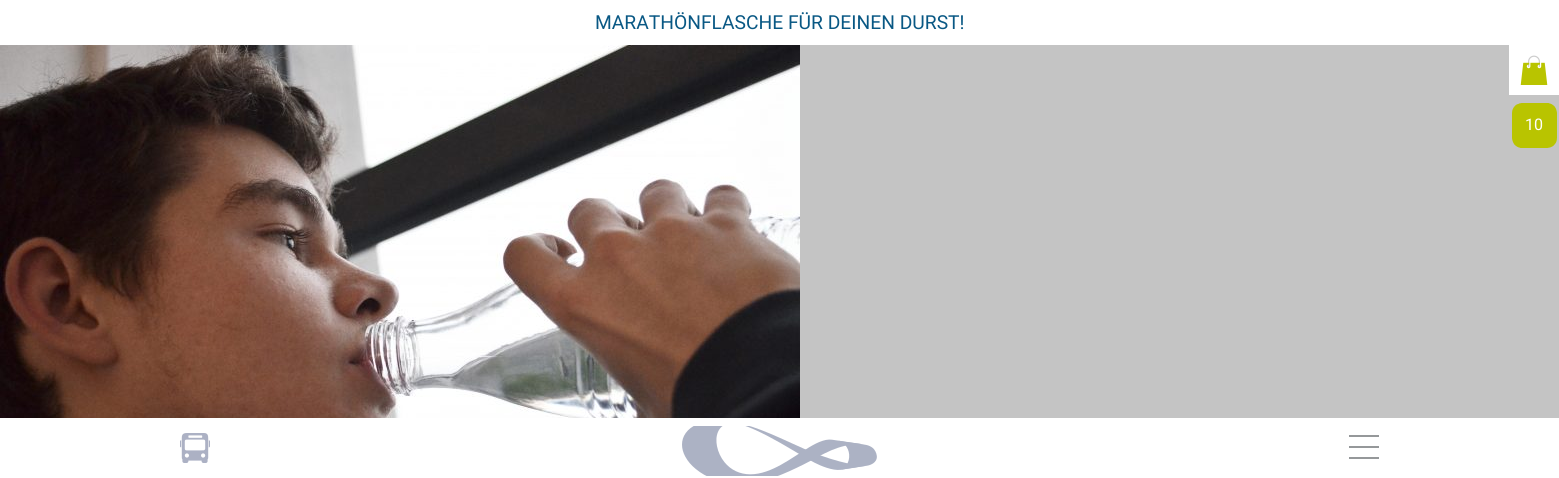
#include <cairo.h>
#include <math.h>
#include <stddef.h>


static void picture(cairo_t *cr, const char *path, double x, double y, double w, double h) {
    cairo_surface_t *image = cairo_image_surface_create_from_png(path);
    cairo_save(cr);
    cairo_set_source_surface(cr, image, x, y);
    cairo_rectangle(cr, x, y, w, h);
    cairo_fill(cr);
    cairo_restore(cr);
    cairo_surface_destroy(image);
}

int main(void) {
    cairo_surface_t *surface = cairo_image_surface_create(CAIRO_FORMAT_RGB24, 1559, 478);
    cairo_t *cr = cairo_create(surface);
    cairo_font_options_t *options = cairo_font_options_create();
    cairo_font_options_set_hint_metrics(options, CAIRO_HINT_METRICS_OFF);
    cairo_font_options_set_hint_style(options, CAIRO_HINT_STYLE_NONE);
    cairo_set_font_options(cr, options);
    cairo_set_miter_limit(cr, 4);
    cairo_set_source_rgb(cr, 1, 1, 1);
    cairo_paint(cr);
    cairo_select_font_face(cr, "Roboto", CAIRO_FONT_SLANT_NORMAL, CAIRO_FONT_WEIGHT_NORMAL);
    cairo_set_font_size(cr, 19.25);
    cairo_set_source_rgb(cr, 0.039, 0.345, 0.518);
    cairo_move_to(cr, 595, 29);
    cairo_show_text(cr, "MARATHÖNFLASCHE FÜR DEINEN DURST!");
    cairo_set_source_rgb(cr, 0.769, 0.769, 0.769);
    cairo_rectangle(cr, 800, 45, 759, 373);
    cairo_fill(cr);
    picture(cr, "img1.png", 0, 45, 800, 373);
    cairo_set_source_rgb(cr, 1, 1, 1);
    cairo_rectangle(cr, 1509, 45, 50, 50);
    cairo_fill(cr);
    picture(cr, "img2.png", 1520, 55, 28, 30);
    picture(cr, "img3.png", 1512, 103, 45, 45);
    cairo_set_font_size(cr, 16);
    cairo_move_to(cr, 1525, 130);
    cairo_show_text(cr, "10");
    picture(cr, "img4.png", 180, 433, 30, 30);
    picture(cr, "img5.png", 682, 426, 195, 50);
    cairo_set_source_rgb(cr, 0.584, 0.596, 0.604);
    cairo_rectangle(cr, 1349, 435, 30, 2);
    cairo_fill(cr);
    cairo_rectangle(cr, 1349, 446, 30, 2);
    cairo_fill(cr);
    cairo_rectangle(cr, 1349, 457, 30, 2);
    cairo_fill(cr);
    cairo_surface_write_to_png(surface, "page.png");
    cairo_font_options_destroy(options);
    cairo_destroy(cr);
    cairo_surface_destroy(surface);
    return 0;
}
